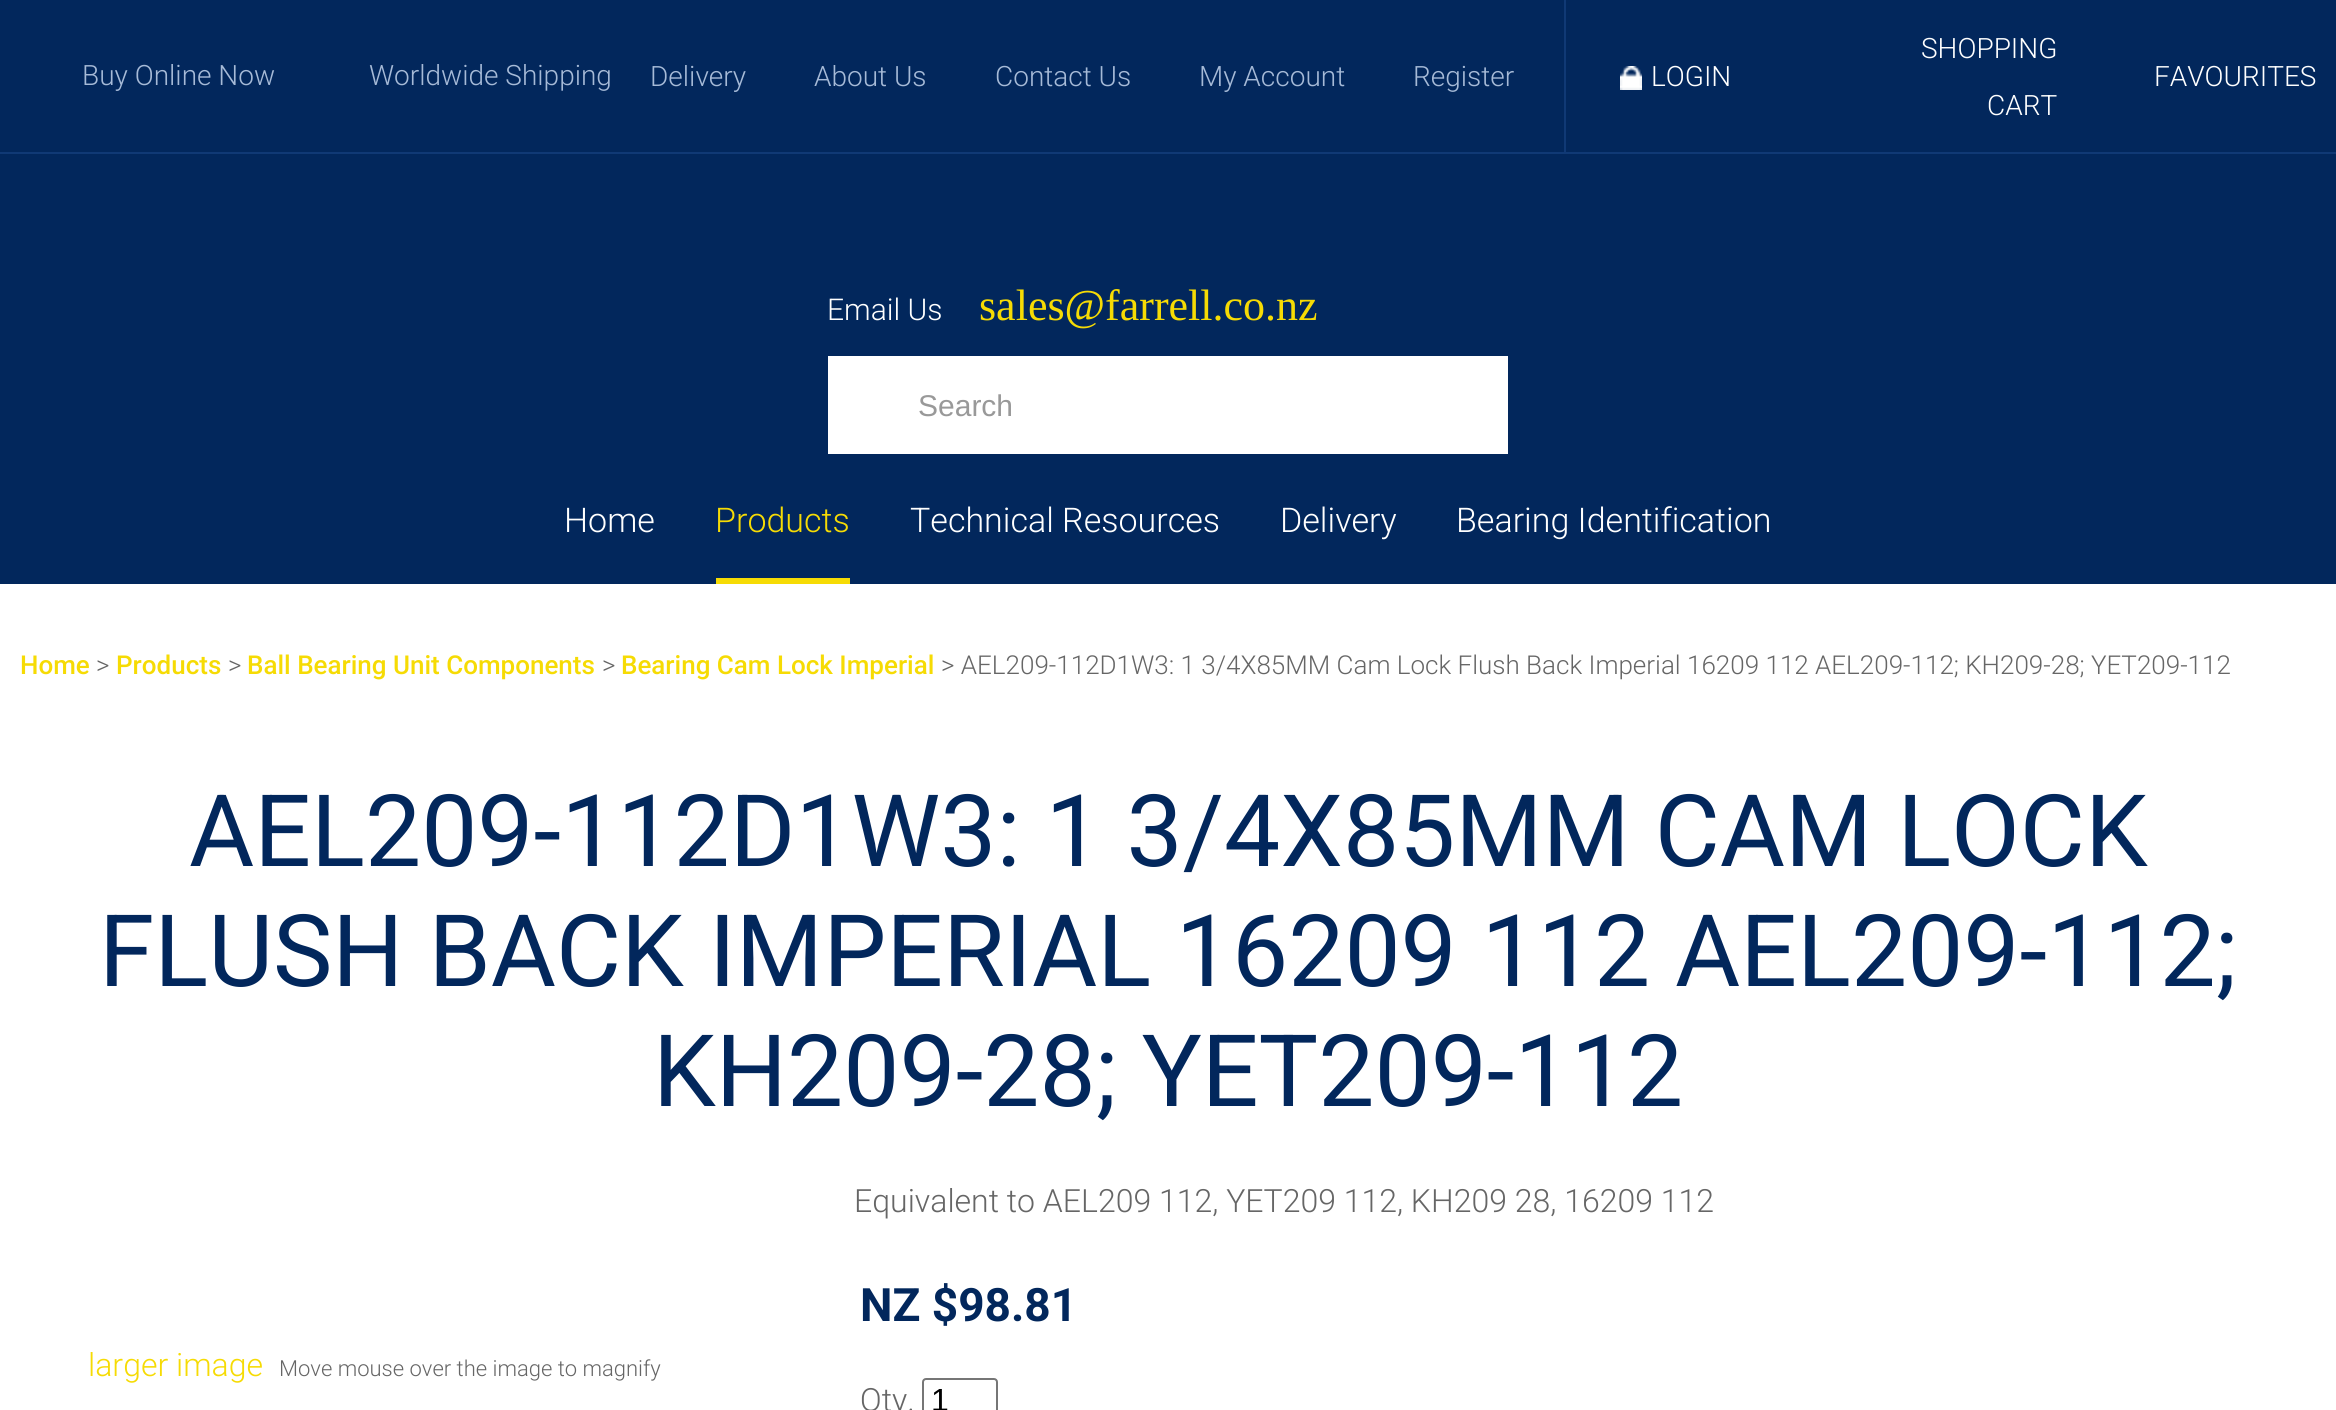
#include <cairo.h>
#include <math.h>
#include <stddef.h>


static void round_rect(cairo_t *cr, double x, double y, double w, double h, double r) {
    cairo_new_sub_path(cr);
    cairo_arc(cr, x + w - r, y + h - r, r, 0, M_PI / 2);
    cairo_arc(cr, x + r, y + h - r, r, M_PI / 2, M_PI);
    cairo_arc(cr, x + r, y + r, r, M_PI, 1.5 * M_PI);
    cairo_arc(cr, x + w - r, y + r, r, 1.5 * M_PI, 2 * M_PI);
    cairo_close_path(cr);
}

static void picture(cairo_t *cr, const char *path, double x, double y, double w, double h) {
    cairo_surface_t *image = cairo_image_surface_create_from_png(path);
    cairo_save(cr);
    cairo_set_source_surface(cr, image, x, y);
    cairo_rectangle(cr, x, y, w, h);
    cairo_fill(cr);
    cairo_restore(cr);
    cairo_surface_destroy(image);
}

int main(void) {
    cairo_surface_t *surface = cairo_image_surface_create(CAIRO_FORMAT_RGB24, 2336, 1410);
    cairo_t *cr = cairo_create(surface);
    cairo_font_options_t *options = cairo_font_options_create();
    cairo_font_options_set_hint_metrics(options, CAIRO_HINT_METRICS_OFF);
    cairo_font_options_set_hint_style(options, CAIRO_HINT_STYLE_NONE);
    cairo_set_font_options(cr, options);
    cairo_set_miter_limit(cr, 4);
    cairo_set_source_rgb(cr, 1, 1, 1);
    cairo_paint(cr);
    cairo_set_source_rgb(cr, 0.008, 0.153, 0.361);
    cairo_rectangle(cr, 0, 0, 2336, 584);
    cairo_fill(cr);
    cairo_set_source_rgb(cr, 0.063, 0.224, 0.459);
    cairo_rectangle(cr, 0, 152, 2336, 2);
    cairo_fill(cr);
    cairo_select_font_face(cr, "Roboto Light", CAIRO_FONT_SLANT_NORMAL, CAIRO_FONT_WEIGHT_NORMAL);
    cairo_set_font_size(cr, 28);
    cairo_set_source_rgb(cr, 0.651, 0.729, 0.843);
    cairo_move_to(cr, 82, 85);
    cairo_show_text(cr, "Buy Online Now");
    cairo_move_to(cr, 369, 85);
    cairo_show_text(cr, "Worldwide Shipping");
    cairo_set_source_rgb(cr, 0.063, 0.224, 0.459);
    cairo_rectangle(cr, 1564, 0, 2, 152);
    cairo_fill(cr);
    cairo_set_source_rgb(cr, 0.651, 0.729, 0.843);
    cairo_move_to(cr, 650, 86);
    cairo_show_text(cr, "Delivery");
    cairo_move_to(cr, 814, 86);
    cairo_show_text(cr, "About Us");
    cairo_move_to(cr, 995, 86);
    cairo_show_text(cr, "Contact Us");
    cairo_move_to(cr, 1199, 86);
    cairo_show_text(cr, "My Account");
    cairo_move_to(cr, 1413, 86);
    cairo_show_text(cr, "Register");
    picture(cr, "img1.png", 1620, 66, 22, 24);
    cairo_set_source_rgb(cr, 1, 1, 1);
    cairo_move_to(cr, 1651, 86);
    cairo_show_text(cr, "LOGIN");
    cairo_move_to(cr, 1921, 58);
    cairo_show_text(cr, "SHOPPING");
    cairo_move_to(cr, 1987, 115);
    cairo_show_text(cr, "CART");
    cairo_move_to(cr, 2154, 86);
    cairo_show_text(cr, "FAVOURITES");
    cairo_set_font_size(cr, 30);
    cairo_move_to(cr, 827, 320);
    cairo_show_text(cr, "Email Us");
    cairo_select_font_face(cr, "Liberation Serif", CAIRO_FONT_SLANT_NORMAL, CAIRO_FONT_WEIGHT_NORMAL);
    cairo_set_font_size(cr, 44);
    cairo_set_source_rgb(cr, 0.961, 0.859, 0.016);
    cairo_move_to(cr, 979, 320);
    cairo_show_text(cr, "sales@farrell.co.nz");
    cairo_set_source_rgb(cr, 1, 1, 1);
    cairo_rectangle(cr, 828, 356, 680, 98);
    cairo_fill(cr);
    cairo_select_font_face(cr, "Liberation Sans", CAIRO_FONT_SLANT_NORMAL, CAIRO_FONT_WEIGHT_NORMAL);
    cairo_set_font_size(cr, 30);
    cairo_set_source_rgb(cr, 0.6, 0.6, 0.6);
    cairo_move_to(cr, 918, 416);
    cairo_show_text(cr, "Search");
    cairo_select_font_face(cr, "Roboto Light", CAIRO_FONT_SLANT_NORMAL, CAIRO_FONT_WEIGHT_NORMAL);
    cairo_set_font_size(cr, 34);
    cairo_set_source_rgb(cr, 1, 1, 1);
    cairo_move_to(cr, 564, 532);
    cairo_show_text(cr, "Home");
    cairo_set_source_rgb(cr, 0.961, 0.859, 0.016);
    cairo_rectangle(cr, 716, 578, 134, 6);
    cairo_fill(cr);
    cairo_move_to(cr, 715, 532);
    cairo_show_text(cr, "Products");
    cairo_set_source_rgb(cr, 1, 1, 1);
    cairo_move_to(cr, 910, 532);
    cairo_show_text(cr, "Technical Resources");
    cairo_move_to(cr, 1280, 532);
    cairo_show_text(cr, "Delivery");
    cairo_move_to(cr, 1456, 532);
    cairo_show_text(cr, "Bearing Identification");
    cairo_select_font_face(cr, "Roboto Medium", CAIRO_FONT_SLANT_NORMAL, CAIRO_FONT_WEIGHT_NORMAL);
    cairo_set_font_size(cr, 26);
    cairo_set_source_rgb(cr, 0.961, 0.859, 0.016);
    cairo_move_to(cr, 20, 674);
    cairo_show_text(cr, "Home");
    cairo_select_font_face(cr, "Roboto Light", CAIRO_FONT_SLANT_NORMAL, CAIRO_FONT_WEIGHT_NORMAL);
    cairo_set_source_rgb(cr, 0.4, 0.4, 0.4);
    cairo_move_to(cr, 96, 674);
    cairo_show_text(cr, ">");
    cairo_select_font_face(cr, "Roboto Medium", CAIRO_FONT_SLANT_NORMAL, CAIRO_FONT_WEIGHT_NORMAL);
    cairo_set_source_rgb(cr, 0.961, 0.859, 0.016);
    cairo_move_to(cr, 116, 674);
    cairo_show_text(cr, "Products");
    cairo_select_font_face(cr, "Roboto Light", CAIRO_FONT_SLANT_NORMAL, CAIRO_FONT_WEIGHT_NORMAL);
    cairo_set_source_rgb(cr, 0.4, 0.4, 0.4);
    cairo_move_to(cr, 228, 674);
    cairo_show_text(cr, ">");
    cairo_select_font_face(cr, "Roboto Medium", CAIRO_FONT_SLANT_NORMAL, CAIRO_FONT_WEIGHT_NORMAL);
    cairo_set_source_rgb(cr, 0.961, 0.859, 0.016);
    cairo_move_to(cr, 247, 674);
    cairo_show_text(cr, "Ball Bearing Unit Components");
    cairo_select_font_face(cr, "Roboto Light", CAIRO_FONT_SLANT_NORMAL, CAIRO_FONT_WEIGHT_NORMAL);
    cairo_set_source_rgb(cr, 0.4, 0.4, 0.4);
    cairo_move_to(cr, 602, 674);
    cairo_show_text(cr, ">");
    cairo_select_font_face(cr, "Roboto Medium", CAIRO_FONT_SLANT_NORMAL, CAIRO_FONT_WEIGHT_NORMAL);
    cairo_set_source_rgb(cr, 0.961, 0.859, 0.016);
    cairo_move_to(cr, 621, 674);
    cairo_show_text(cr, "Bearing Cam Lock Imperial");
    cairo_select_font_face(cr, "Roboto Light", CAIRO_FONT_SLANT_NORMAL, CAIRO_FONT_WEIGHT_NORMAL);
    cairo_set_source_rgb(cr, 0.4, 0.4, 0.4);
    cairo_move_to(cr, 941, 674);
    cairo_show_text(cr, "> AEL209-112D1W3: 1 3/4X85MM Cam Lock Flush Back Imperial 16209 112 AEL209-112; KH209-28; YET209-112");
    cairo_select_font_face(cr, "Roboto", CAIRO_FONT_SLANT_NORMAL, CAIRO_FONT_WEIGHT_NORMAL);
    cairo_set_font_size(cr, 100);
    cairo_set_source_rgb(cr, 0.008, 0.153, 0.361);
    cairo_move_to(cr, 189, 866);
    cairo_show_text(cr, "AEL209-112D1W3: 1 3/4X85MM CAM LOCK");
    cairo_move_to(cr, 99, 986);
    cairo_show_text(cr, "FLUSH BACK IMPERIAL 16209 112 AEL209-112;");
    cairo_move_to(cr, 653, 1106);
    cairo_show_text(cr, "KH209-28; YET209-112");
    cairo_select_font_face(cr, "Roboto Light", CAIRO_FONT_SLANT_NORMAL, CAIRO_FONT_WEIGHT_NORMAL);
    cairo_set_font_size(cr, 32);
    cairo_set_source_rgb(cr, 0.961, 0.859, 0.016);
    cairo_move_to(cr, 88, 1376);
    cairo_show_text(cr, "larger image");
    cairo_set_font_size(cr, 22);
    cairo_set_source_rgb(cr, 0.4, 0.4, 0.4);
    cairo_move_to(cr, 279, 1376);
    cairo_show_text(cr, "Move mouse over the image to magnify");
    cairo_set_font_size(cr, 32);
    cairo_move_to(cr, 854, 1212);
    cairo_show_text(cr, "Equivalent to AEL209 112, YET209 112, KH209 28, 16209 112");
    cairo_select_font_face(cr, "Roboto", CAIRO_FONT_SLANT_NORMAL, CAIRO_FONT_WEIGHT_BOLD);
    cairo_set_font_size(cr, 46);
    cairo_set_source_rgb(cr, 0.008, 0.153, 0.361);
    cairo_move_to(cr, 860, 1321);
    cairo_show_text(cr, "NZ $98.81");
    cairo_select_font_face(cr, "Roboto Light", CAIRO_FONT_SLANT_NORMAL, CAIRO_FONT_WEIGHT_NORMAL);
    cairo_set_font_size(cr, 32);
    cairo_set_source_rgb(cr, 0.4, 0.4, 0.4);
    cairo_move_to(cr, 860, 1411);
    cairo_show_text(cr, "Qty.");
    round_rect(cr, 923, 1379, 74, 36, 3);
    cairo_set_source_rgb(cr, 0.463, 0.463, 0.463);
    cairo_stroke(cr);
    cairo_select_font_face(cr, "Liberation Sans", CAIRO_FONT_SLANT_NORMAL, CAIRO_FONT_WEIGHT_NORMAL);
    cairo_set_source_rgb(cr, 0, 0, 0);
    cairo_move_to(cr, 931, 1411);
    cairo_show_text(cr, "1");
    cairo_surface_write_to_png(surface, "page.png");
    cairo_font_options_destroy(options);
    cairo_destroy(cr);
    cairo_surface_destroy(surface);
    return 0;
}
